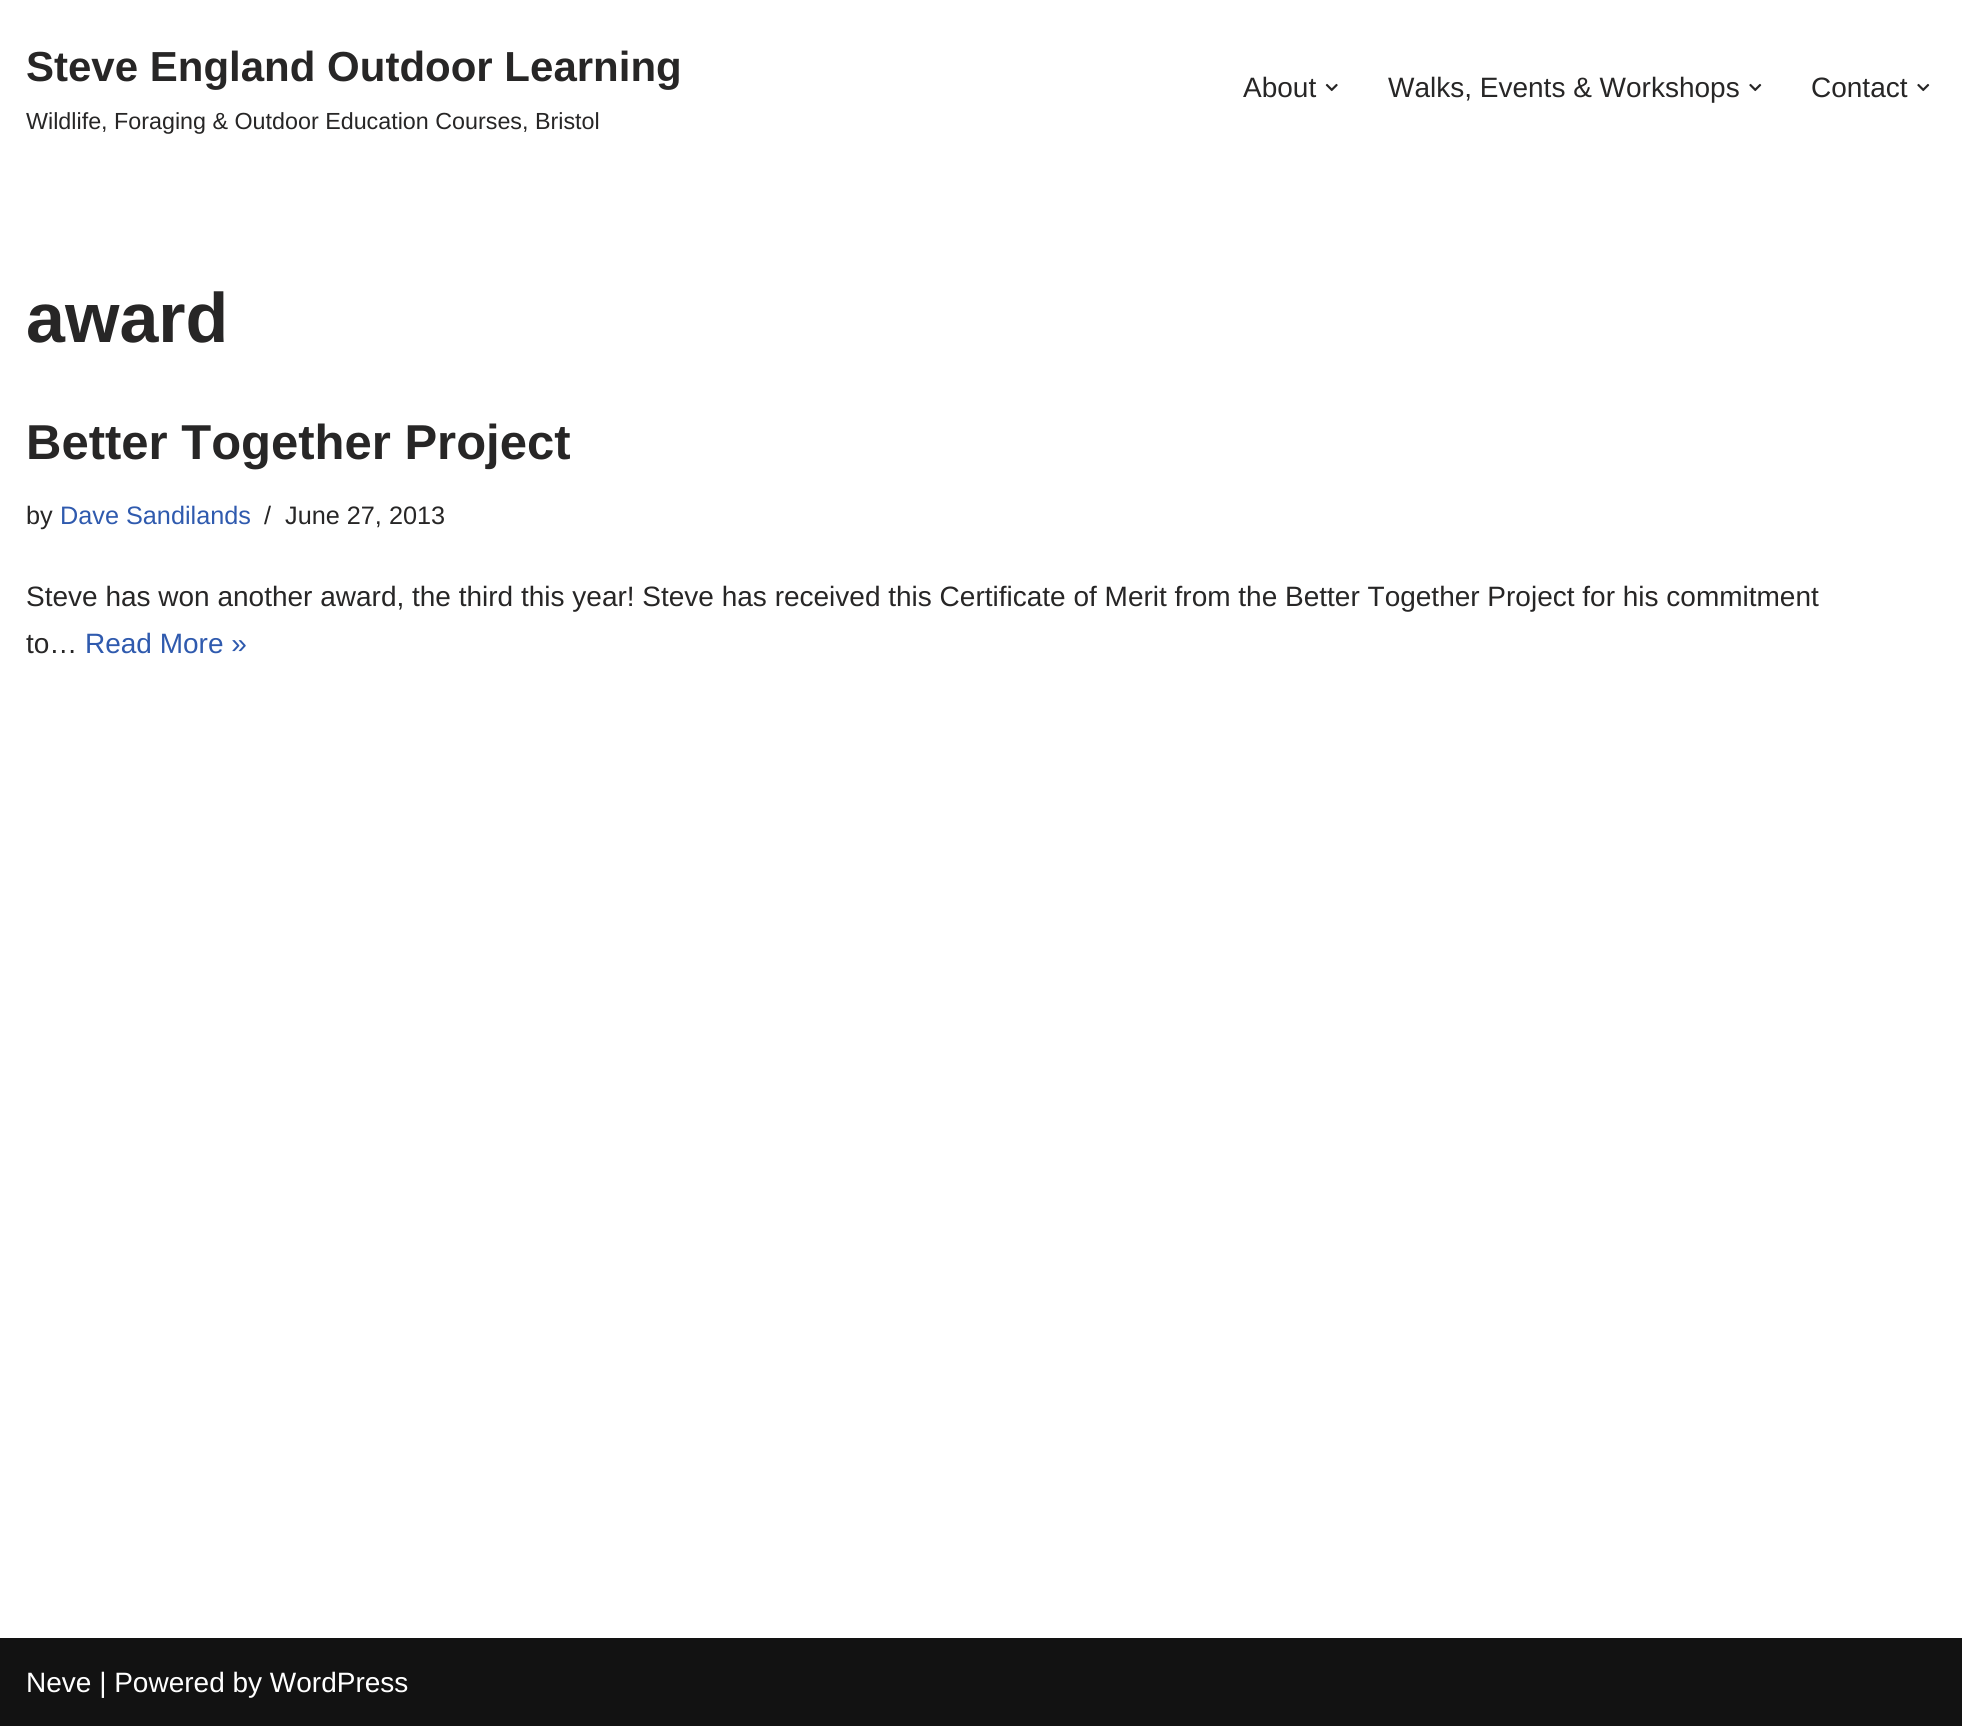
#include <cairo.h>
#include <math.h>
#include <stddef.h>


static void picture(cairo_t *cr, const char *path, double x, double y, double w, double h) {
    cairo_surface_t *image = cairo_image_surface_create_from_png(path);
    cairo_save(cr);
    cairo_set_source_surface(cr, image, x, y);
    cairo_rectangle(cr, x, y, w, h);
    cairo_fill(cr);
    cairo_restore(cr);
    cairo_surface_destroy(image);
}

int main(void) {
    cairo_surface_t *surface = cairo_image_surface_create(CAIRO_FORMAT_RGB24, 1962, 1726);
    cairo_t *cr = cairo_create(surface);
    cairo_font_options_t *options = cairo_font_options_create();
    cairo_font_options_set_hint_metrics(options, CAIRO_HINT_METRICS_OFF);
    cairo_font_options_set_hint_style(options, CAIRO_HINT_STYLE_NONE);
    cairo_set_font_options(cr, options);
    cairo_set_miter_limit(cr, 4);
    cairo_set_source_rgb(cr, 1, 1, 1);
    cairo_paint(cr);
    cairo_select_font_face(cr, "Liberation Sans", CAIRO_FONT_SLANT_NORMAL, CAIRO_FONT_WEIGHT_BOLD);
    cairo_set_font_size(cr, 42);
    cairo_set_source_rgb(cr, 0.153, 0.149, 0.149);
    cairo_move_to(cr, 26, 81);
    cairo_show_text(cr, "Steve England Outdoor Learning");
    cairo_select_font_face(cr, "Liberation Sans", CAIRO_FONT_SLANT_NORMAL, CAIRO_FONT_WEIGHT_NORMAL);
    cairo_set_font_size(cr, 23.3);
    cairo_move_to(cr, 26, 129);
    cairo_show_text(cr, "Wildlife, Foraging & Outdoor Education Courses, Bristol");
    cairo_set_font_size(cr, 28);
    cairo_move_to(cr, 1243, 97);
    cairo_show_text(cr, "About");
    picture(cr, "img1.png", 1325, 83, 13, 9);
    cairo_move_to(cr, 1388, 97);
    cairo_show_text(cr, "Walks, Events & Workshops");
    picture(cr, "img2.png", 1749, 83, 13, 9);
    cairo_move_to(cr, 1811, 97);
    cairo_show_text(cr, "Contact");
    picture(cr, "img2.png", 1917, 83, 13, 9);
    cairo_select_font_face(cr, "Liberation Sans", CAIRO_FONT_SLANT_NORMAL, CAIRO_FONT_WEIGHT_BOLD);
    cairo_set_font_size(cr, 70);
    cairo_move_to(cr, 26, 342);
    cairo_show_text(cr, "award");
    cairo_set_font_size(cr, 49);
    cairo_move_to(cr, 26, 459);
    cairo_show_text(cr, "Better Together Project");
    cairo_select_font_face(cr, "Liberation Sans", CAIRO_FONT_SLANT_NORMAL, CAIRO_FONT_WEIGHT_NORMAL);
    cairo_set_font_size(cr, 25.25);
    cairo_move_to(cr, 26, 524);
    cairo_show_text(cr, "by");
    cairo_set_source_rgb(cr, 0.184, 0.353, 0.682);
    cairo_move_to(cr, 60, 524);
    cairo_show_text(cr, "Dave Sandilands");
    cairo_set_source_rgb(cr, 0.153, 0.149, 0.149);
    cairo_move_to(cr, 264, 524);
    cairo_show_text(cr, "/");
    cairo_move_to(cr, 285, 524);
    cairo_show_text(cr, "June 27, 2013");
    cairo_set_font_size(cr, 28);
    cairo_move_to(cr, 26, 606);
    cairo_show_text(cr, "Steve has won another award, the third this year! Steve has received this Certificate of Merit from the Better Together Project for his commitment");
    cairo_move_to(cr, 26, 653);
    cairo_show_text(cr, "to…");
    cairo_set_source_rgb(cr, 0.184, 0.353, 0.682);
    cairo_move_to(cr, 85, 653);
    cairo_show_text(cr, "Read More »");
    cairo_set_source_rgb(cr, 0.071, 0.071, 0.071);
    cairo_rectangle(cr, 0, 1638, 1962, 88);
    cairo_fill(cr);
    cairo_set_source_rgb(cr, 1, 1, 1);
    cairo_move_to(cr, 26, 1692);
    cairo_show_text(cr, "Neve | Powered by WordPress");
    cairo_surface_write_to_png(surface, "page.png");
    cairo_font_options_destroy(options);
    cairo_destroy(cr);
    cairo_surface_destroy(surface);
    return 0;
}
